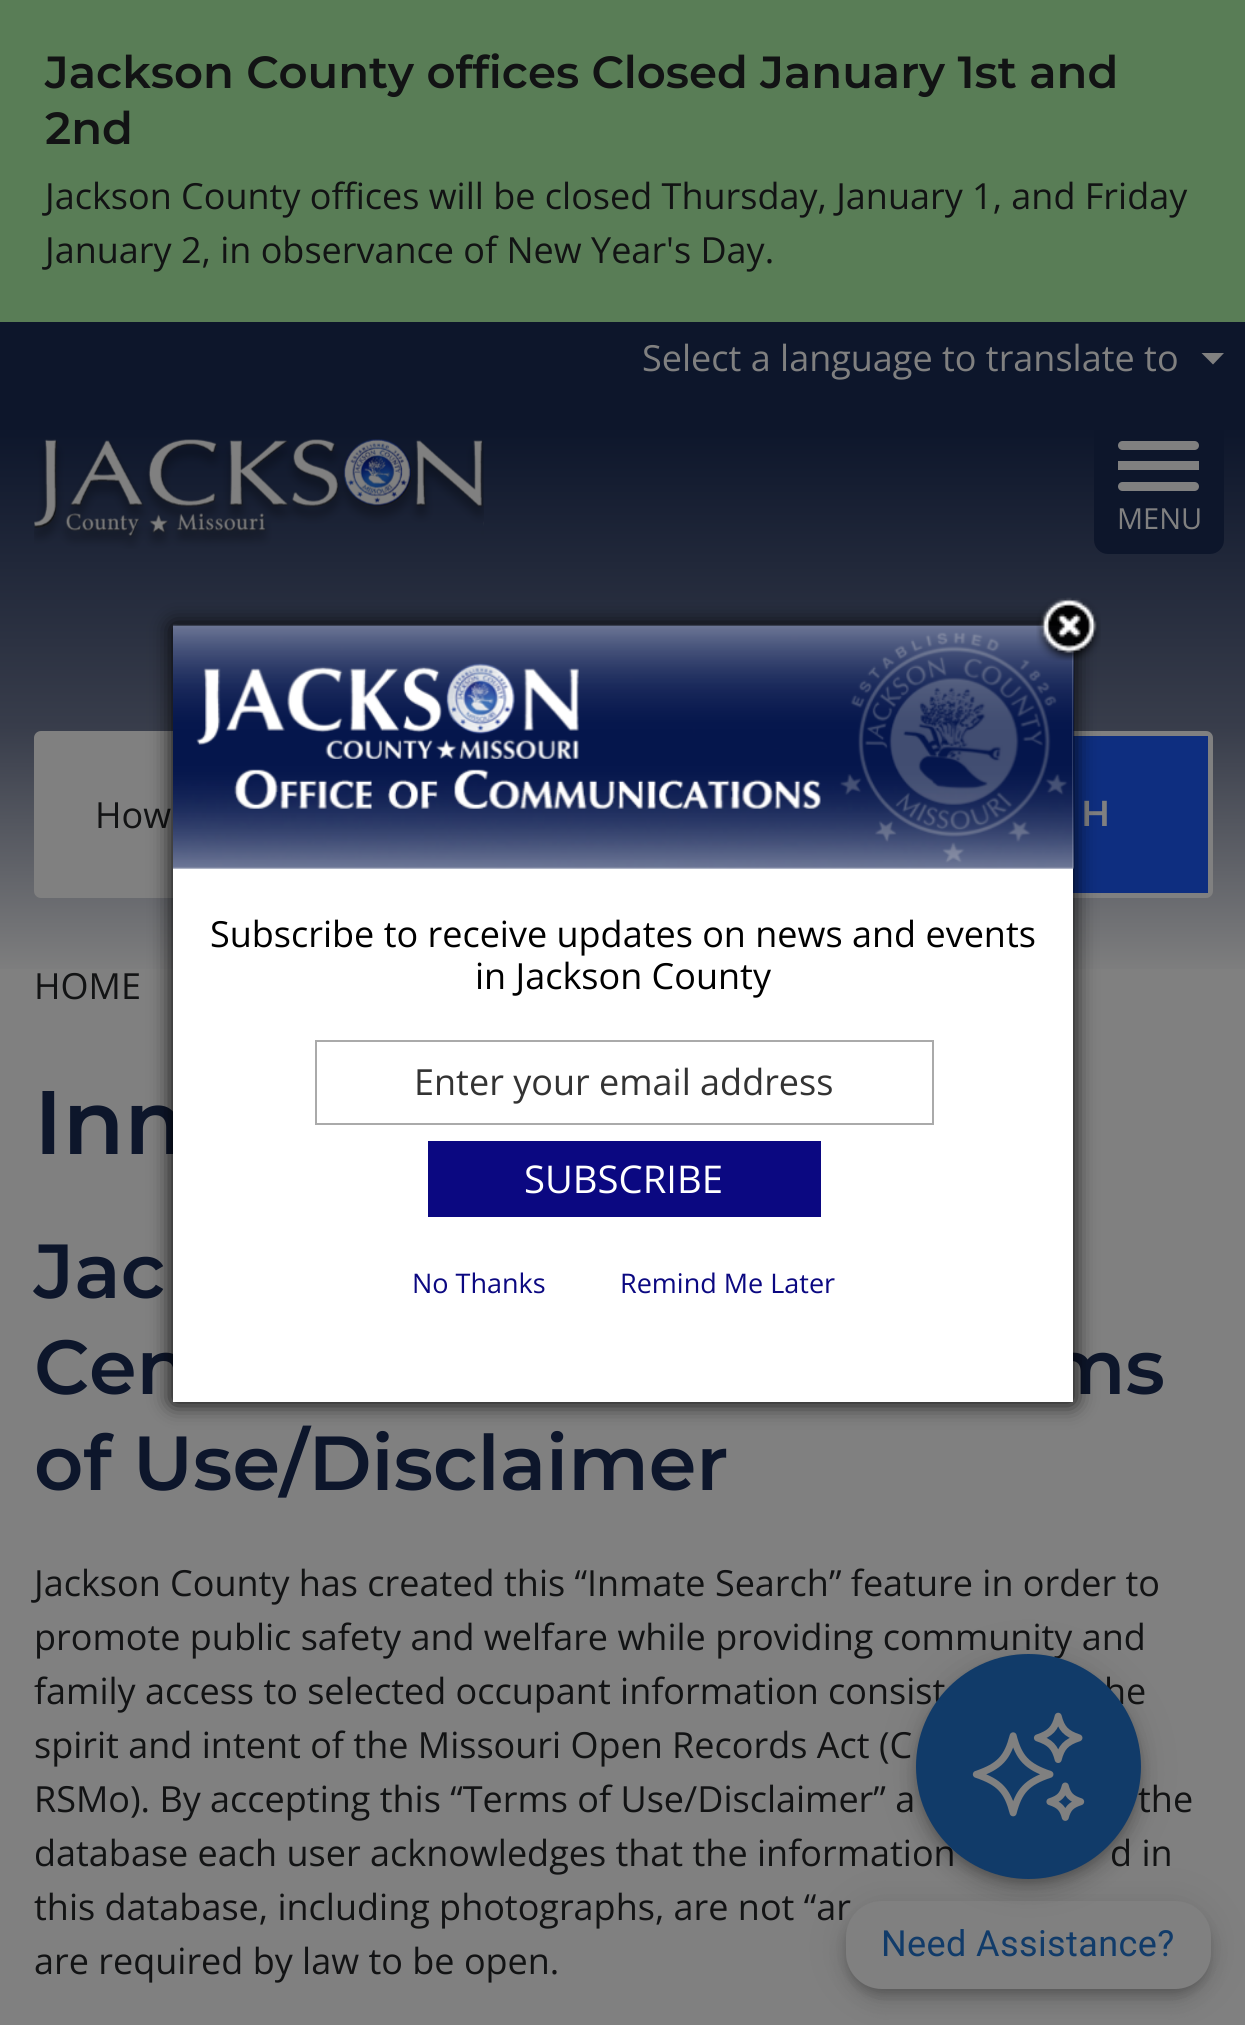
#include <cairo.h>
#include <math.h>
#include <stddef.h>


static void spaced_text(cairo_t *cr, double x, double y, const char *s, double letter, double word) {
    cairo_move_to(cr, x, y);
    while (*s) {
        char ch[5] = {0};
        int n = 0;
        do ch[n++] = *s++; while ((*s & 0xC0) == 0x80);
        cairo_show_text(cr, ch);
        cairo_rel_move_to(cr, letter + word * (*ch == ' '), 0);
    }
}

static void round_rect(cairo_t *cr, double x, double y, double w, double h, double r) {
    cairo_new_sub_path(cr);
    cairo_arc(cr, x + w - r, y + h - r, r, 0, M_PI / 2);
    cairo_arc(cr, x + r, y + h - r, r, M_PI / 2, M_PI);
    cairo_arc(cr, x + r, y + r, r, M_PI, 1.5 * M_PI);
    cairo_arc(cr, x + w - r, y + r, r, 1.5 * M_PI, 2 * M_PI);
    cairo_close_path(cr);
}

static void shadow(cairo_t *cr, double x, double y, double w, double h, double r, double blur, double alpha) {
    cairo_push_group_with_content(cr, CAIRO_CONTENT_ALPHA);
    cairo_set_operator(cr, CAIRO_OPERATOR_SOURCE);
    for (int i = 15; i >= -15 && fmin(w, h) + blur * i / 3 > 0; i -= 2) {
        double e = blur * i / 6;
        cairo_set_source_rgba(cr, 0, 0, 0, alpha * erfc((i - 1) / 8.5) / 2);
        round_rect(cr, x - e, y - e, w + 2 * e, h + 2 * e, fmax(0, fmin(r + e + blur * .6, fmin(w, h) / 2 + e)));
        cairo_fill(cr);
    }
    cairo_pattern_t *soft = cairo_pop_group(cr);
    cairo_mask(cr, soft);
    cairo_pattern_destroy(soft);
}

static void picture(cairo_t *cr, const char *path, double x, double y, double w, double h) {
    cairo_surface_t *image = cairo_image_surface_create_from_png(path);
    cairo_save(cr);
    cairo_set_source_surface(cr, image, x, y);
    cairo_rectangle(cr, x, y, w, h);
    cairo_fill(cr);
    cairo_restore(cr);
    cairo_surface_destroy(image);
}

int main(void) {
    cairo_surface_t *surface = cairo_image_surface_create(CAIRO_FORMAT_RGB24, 1245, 2025);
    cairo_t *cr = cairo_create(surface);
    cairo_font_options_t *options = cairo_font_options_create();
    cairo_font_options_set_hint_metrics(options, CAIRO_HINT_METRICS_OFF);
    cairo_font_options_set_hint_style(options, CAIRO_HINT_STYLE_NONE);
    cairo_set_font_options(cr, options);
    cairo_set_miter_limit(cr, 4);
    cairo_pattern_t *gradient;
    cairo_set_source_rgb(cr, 0.502, 0.502, 0.502);
    cairo_paint(cr);
    cairo_set_source_rgb(cr, 0.349, 0.49, 0.337);
    cairo_rectangle(cr, 0, 0, 1245, 322);
    cairo_fill(cr);
    cairo_select_font_face(cr, "Montserrat Thin", CAIRO_FONT_SLANT_NORMAL, CAIRO_FONT_WEIGHT_NORMAL);
    cairo_set_font_size(cr, 45);
    cairo_set_source_rgb(cr, 0.071, 0.075, 0.082);
    cairo_move_to(cr, 45, 88);
    cairo_show_text(cr, "Jackson County offices Closed January 1st and");
    cairo_move_to(cr, 45, 144);
    cairo_show_text(cr, "2nd");
    cairo_select_font_face(cr, "Open Sans", CAIRO_FONT_SLANT_NORMAL, CAIRO_FONT_WEIGHT_NORMAL);
    cairo_set_font_size(cr, 36);
    cairo_move_to(cr, 45, 209);
    cairo_show_text(cr, "Jackson County offices will be closed Thursday, January 1, and Friday");
    cairo_move_to(cr, 45, 263);
    cairo_show_text(cr, "January 2, in observance of New Year's Day.");
    cairo_set_source_rgb(cr, 0.051, 0.086, 0.169);
    cairo_rectangle(cr, 0, 322, 1245, 72);
    cairo_fill(cr);
    cairo_set_source_rgb(cr, 0.502, 0.502, 0.502);
    cairo_move_to(cr, 642, 371);
    cairo_show_text(cr, "Select a language to translate to");
    cairo_new_path(cr);
    cairo_move_to(cr, 1201.5, 353);
    cairo_line_to(cr, 1224, 353);
    cairo_line_to(cr, 1213, 364.5);
    cairo_close_path(cr);
    cairo_fill(cr);
    gradient = cairo_pattern_create_linear(623, 394, 623, 1035);
    cairo_pattern_add_color_stop_rgba(gradient, 0.05, 0.051, 0.086, 0.169, 1);
    cairo_pattern_add_color_stop_rgba(gradient, 0.52, 0.22, 0.239, 0.294, 1);
    cairo_pattern_add_color_stop_rgba(gradient, 0.91, 0.502, 0.502, 0.502, 1);
    cairo_set_source(cr, gradient);
    cairo_pattern_destroy(gradient);
    cairo_rectangle(cr, 0, 394, 1245, 575);
    cairo_fill(cr);
    picture(cr, "img1.png", 34, 439, 450, 110);
    cairo_set_source_rgb(cr, 0.051, 0.086, 0.169);
    round_rect(cr, 1094, 416, 130, 138, 14);
    cairo_fill(cr);
    cairo_set_source_rgb(cr, 0.502, 0.502, 0.502);
    cairo_rectangle(cr, 1118, 461, 81, 9);
    cairo_fill(cr);
    round_rect(cr, 1118, 441, 81, 9, 4.5);
    cairo_fill(cr);
    round_rect(cr, 1118, 482, 81, 9, 4.5);
    cairo_fill(cr);
    cairo_set_font_size(cr, 29);
    cairo_move_to(cr, 1117, 529);
    cairo_show_text(cr, "MENU");
    round_rect(cr, 36.5, 733.5, 1174, 162, 4.5);
    cairo_set_line_width(cr, 5);
    cairo_stroke(cr);
    cairo_rectangle(cr, 39, 736, 134, 157);
    cairo_fill(cr);
    cairo_set_font_size(cr, 36);
    cairo_set_source_rgb(cr, 0.071, 0.075, 0.082);
    cairo_move_to(cr, 95, 828);
    cairo_show_text(cr, "How");
    cairo_set_source_rgb(cr, 0.055, 0.18, 0.502);
    cairo_rectangle(cr, 1073, 736, 135, 157);
    cairo_fill(cr);
    cairo_select_font_face(cr, "Montserrat Thin", CAIRO_FONT_SLANT_NORMAL, CAIRO_FONT_WEIGHT_NORMAL);
    cairo_set_source_rgb(cr, 0.502, 0.502, 0.502);
    cairo_move_to(cr, 1081, 826);
    cairo_show_text(cr, "H");
    cairo_select_font_face(cr, "Open Sans", CAIRO_FONT_SLANT_NORMAL, CAIRO_FONT_WEIGHT_NORMAL);
    cairo_set_source_rgb(cr, 0.071, 0.075, 0.082);
    cairo_move_to(cr, 34, 999);
    cairo_show_text(cr, "HOME");
    cairo_select_font_face(cr, "Montserrat Thin", CAIRO_FONT_SLANT_NORMAL, CAIRO_FONT_WEIGHT_NORMAL);
    cairo_set_font_size(cr, 90);
    cairo_set_source_rgb(cr, 0.051, 0.086, 0.169);
    cairo_move_to(cr, 34, 1154);
    cairo_show_text(cr, "Inm");
    cairo_set_font_size(cr, 76.5);
    cairo_move_to(cr, 34, 1298);
    cairo_show_text(cr, "Jac");
    cairo_move_to(cr, 34, 1394);
    cairo_show_text(cr, "Cen");
    cairo_move_to(cr, 1045, 1394);
    cairo_show_text(cr, "ms");
    cairo_move_to(cr, 34, 1490);
    cairo_show_text(cr, "of Use/Disclaimer");
    cairo_select_font_face(cr, "Open Sans", CAIRO_FONT_SLANT_NORMAL, CAIRO_FONT_WEIGHT_NORMAL);
    cairo_set_font_size(cr, 36);
    cairo_set_source_rgb(cr, 0.071, 0.075, 0.082);
    cairo_move_to(cr, 34, 1596);
    cairo_show_text(cr, "Jackson County has created this “Inmate Search” feature in order to");
    cairo_move_to(cr, 34, 1650);
    cairo_show_text(cr, "promote public safety and welfare while providing community and");
    cairo_move_to(cr, 34, 1704);
    cairo_show_text(cr, "family access to selected occupant information consist");
    cairo_move_to(cr, 1104, 1704);
    cairo_show_text(cr, "he");
    cairo_move_to(cr, 34, 1758);
    cairo_show_text(cr, "spirit and intent of the Missouri Open Records Act (C");
    cairo_move_to(cr, 34, 1812);
    cairo_show_text(cr, "RSMo). By accepting this “Terms of Use/Disclaimer” a");
    cairo_move_to(cr, 1138, 1812);
    cairo_show_text(cr, "the");
    cairo_move_to(cr, 34, 1866);
    cairo_show_text(cr, "database each user acknowledges that the information");
    cairo_move_to(cr, 1110, 1866);
    cairo_show_text(cr, "d in");
    cairo_move_to(cr, 34, 1920);
    cairo_show_text(cr, "this database, including photographs, are not “ar");
    cairo_move_to(cr, 34, 1974);
    cairo_show_text(cr, "are required by law to be open.");
    cairo_set_source_rgb(cr, 0, 0, 0);
    shadow(cr, 173, 626, 900, 776, 0, 11, 1);
    cairo_set_source_rgb(cr, 1, 1, 1);
    cairo_rectangle(cr, 173, 632, 900, 770);
    cairo_fill(cr);
    picture(cr, "img3.png", 173, 624, 901, 245);
    picture(cr, "img2.png", 1036, 597, 65, 64);
    cairo_set_source_rgb(cr, 0, 0, 0);
    cairo_move_to(cr, 210, 947);
    cairo_show_text(cr, "Subscribe to receive updates on news and events");
    cairo_move_to(cr, 475, 989);
    cairo_show_text(cr, "in Jackson County");
    cairo_rectangle(cr, 316, 1041, 617, 83);
    cairo_set_source_rgb(cr, 0.667, 0.667, 0.667);
    cairo_set_line_width(cr, 2);
    cairo_stroke(cr);
    cairo_set_source_rgb(cr, 0.2, 0.2, 0.2);
    cairo_move_to(cr, 414, 1095);
    cairo_show_text(cr, "Enter your email address");
    cairo_set_source_rgb(cr, 0.043, 0.035, 0.506);
    cairo_rectangle(cr, 428, 1141, 393, 76);
    cairo_fill(cr);
    cairo_set_font_size(cr, 38.25);
    cairo_set_source_rgb(cr, 1, 1, 1);
    cairo_move_to(cr, 524, 1193);
    cairo_show_text(cr, "SUBSCRIBE");
    cairo_set_font_size(cr, 27);
    cairo_set_source_rgb(cr, 0.043, 0.035, 0.506);
    cairo_move_to(cr, 412, 1293);
    cairo_show_text(cr, "No Thanks");
    cairo_move_to(cr, 620, 1293);
    cairo_show_text(cr, "Remind Me Later");
    cairo_set_source_rgb(cr, 0, 0, 0);
    shadow(cr, 846, 1904, 365, 87, 36, 20, 0.1);
    shadow(cr, 846, 1915, 365, 88, 36, 11, 0.1);
    shadow(cr, 848, 1910, 360, 84, 34, 5.5, 0.2);
    cairo_set_source_rgb(cr, 0.502, 0.502, 0.502);
    round_rect(cr, 846, 1901, 365, 88, 36);
    cairo_fill(cr);
    cairo_set_source_rgb(cr, 0, 0, 0);
    shadow(cr, 916, 1656, 225, 225, 112.5, 20, 0.12);
    shadow(cr, 916, 1667, 225, 225, 112.5, 11, 0.14);
    shadow(cr, 918, 1663, 221, 220, 110, 5.5, 0.2);
    cairo_set_source_rgb(cr, 0.067, 0.231, 0.412);
    cairo_arc(cr, 1028.5, 1766.5, 112.5, 0, 2 * M_PI);
    cairo_fill(cr);
    picture(cr, "img4.png", 972, 1712, 113, 109);
    cairo_select_font_face(cr, "Roboto", CAIRO_FONT_SLANT_NORMAL, CAIRO_FONT_WEIGHT_NORMAL);
    cairo_set_font_size(cr, 36);
    spaced_text(cr, 881, 1956, "Need Assistance?", 0.4, 0);
    cairo_surface_write_to_png(surface, "page.png");
    cairo_font_options_destroy(options);
    cairo_destroy(cr);
    cairo_surface_destroy(surface);
    return 0;
}
